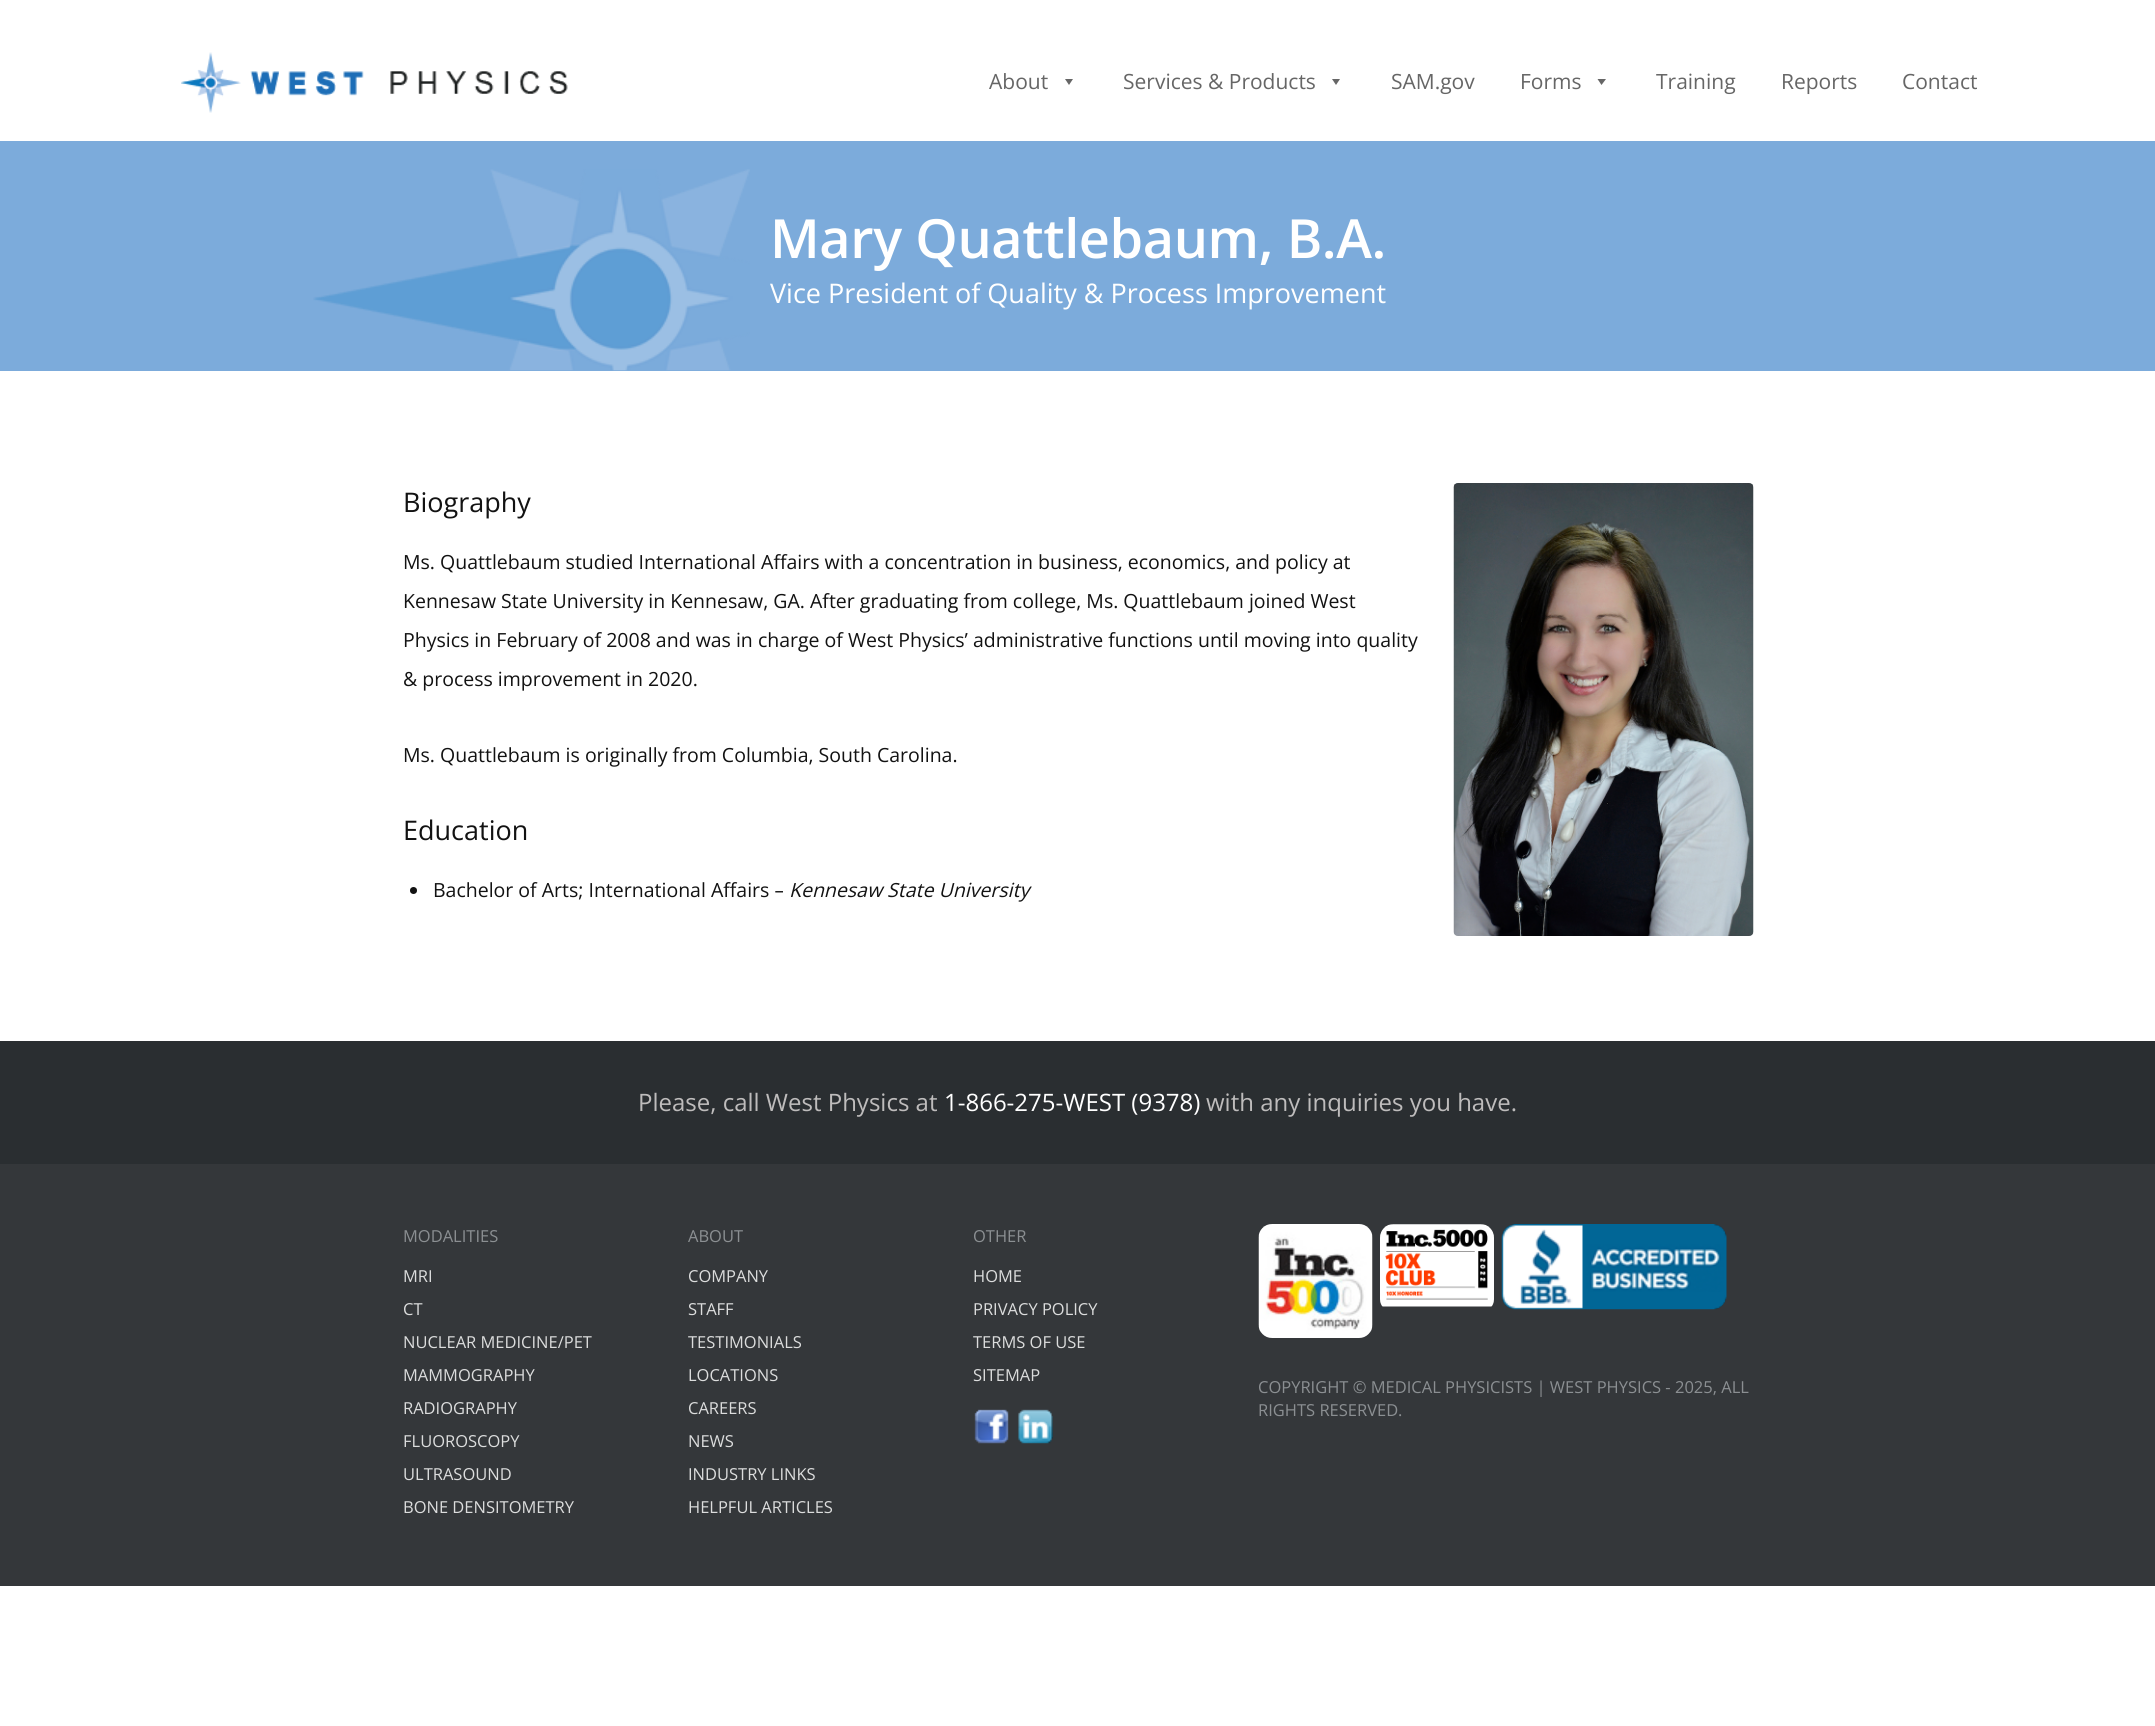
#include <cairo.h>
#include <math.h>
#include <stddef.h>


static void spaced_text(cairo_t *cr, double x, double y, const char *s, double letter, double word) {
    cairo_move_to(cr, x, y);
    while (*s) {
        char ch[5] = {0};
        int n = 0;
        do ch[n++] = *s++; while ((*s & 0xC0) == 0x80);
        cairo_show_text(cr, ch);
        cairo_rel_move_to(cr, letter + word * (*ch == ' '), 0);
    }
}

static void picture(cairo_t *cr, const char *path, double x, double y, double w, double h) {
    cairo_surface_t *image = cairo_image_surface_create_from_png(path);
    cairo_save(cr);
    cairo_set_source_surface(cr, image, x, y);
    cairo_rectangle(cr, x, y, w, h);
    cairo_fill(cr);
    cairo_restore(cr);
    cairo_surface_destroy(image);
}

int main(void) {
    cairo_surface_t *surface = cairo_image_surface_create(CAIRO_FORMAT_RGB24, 2155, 1726);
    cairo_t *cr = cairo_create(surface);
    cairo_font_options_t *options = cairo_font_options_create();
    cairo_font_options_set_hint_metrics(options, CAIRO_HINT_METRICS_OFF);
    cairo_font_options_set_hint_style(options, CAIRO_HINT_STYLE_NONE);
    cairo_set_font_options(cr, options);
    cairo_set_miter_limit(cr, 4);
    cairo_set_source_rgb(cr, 1, 1, 1);
    cairo_paint(cr);
    picture(cr, "img1.png", 181, 52, 387, 61);
    cairo_select_font_face(cr, "Open Sans", CAIRO_FONT_SLANT_NORMAL, CAIRO_FONT_WEIGHT_NORMAL);
    cairo_set_font_size(cr, 21);
    cairo_set_source_rgb(cr, 0.4, 0.4, 0.4);
    cairo_move_to(cr, 989, 89);
    cairo_show_text(cr, "About");
    cairo_new_path(cr);
    cairo_move_to(cr, 1073, 79);
    cairo_line_to(cr, 1069, 85);
    cairo_line_to(cr, 1065, 79);
    cairo_close_path(cr);
    cairo_fill(cr);
    cairo_move_to(cr, 1123, 89);
    cairo_show_text(cr, "Services & Products");
    cairo_new_path(cr);
    cairo_move_to(cr, 1340, 79);
    cairo_line_to(cr, 1336, 85);
    cairo_line_to(cr, 1332, 79);
    cairo_close_path(cr);
    cairo_fill(cr);
    cairo_move_to(cr, 1391, 89);
    cairo_show_text(cr, "SAM.gov");
    cairo_move_to(cr, 1520, 89);
    cairo_show_text(cr, "Forms");
    cairo_new_path(cr);
    cairo_move_to(cr, 1606, 79);
    cairo_line_to(cr, 1601.5, 85);
    cairo_line_to(cr, 1597.5, 79);
    cairo_close_path(cr);
    cairo_fill(cr);
    cairo_move_to(cr, 1656, 89);
    cairo_show_text(cr, "Training");
    cairo_move_to(cr, 1781, 89);
    cairo_show_text(cr, "Reports");
    cairo_move_to(cr, 1902, 89);
    cairo_show_text(cr, "Contact");
    cairo_set_source_rgb(cr, 0.486, 0.671, 0.859);
    cairo_rectangle(cr, 0, 141, 2155, 230);
    cairo_fill(cr);
    picture(cr, "img2.png", 313, 169, 437, 202);
    cairo_select_font_face(cr, "Open Sans SemiBold", CAIRO_FONT_SLANT_NORMAL, CAIRO_FONT_WEIGHT_NORMAL);
    cairo_set_font_size(cr, 54);
    cairo_set_source_rgb(cr, 1, 1, 1);
    spaced_text(cr, 770, 258, "Mary Quattlebaum, B.A.", -0.4, 0);
    cairo_select_font_face(cr, "Open Sans", CAIRO_FONT_SLANT_NORMAL, CAIRO_FONT_WEIGHT_NORMAL);
    cairo_set_font_size(cr, 27);
    cairo_move_to(cr, 770, 303);
    cairo_show_text(cr, "Vice President of Quality & Process Improvement");
    cairo_set_source_rgb(cr, 0.071, 0.071, 0.071);
    cairo_move_to(cr, 403, 512);
    cairo_show_text(cr, "Biography");
    picture(cr, "img3.png", 1453, 483, 301, 453);
    cairo_set_font_size(cr, 19.5);
    cairo_move_to(cr, 403, 569);
    cairo_show_text(cr, "Ms. Quattlebaum studied International Affairs with a concentration in business, economics, and policy at");
    cairo_move_to(cr, 403, 608);
    cairo_show_text(cr, "Kennesaw State University in Kennesaw, GA. After graduating from college, Ms. Quattlebaum joined West");
    cairo_move_to(cr, 403, 647);
    cairo_show_text(cr, "Physics in February of 2008 and was in charge of West Physics’ administrative functions until moving into quality");
    cairo_move_to(cr, 403, 686);
    cairo_show_text(cr, "& process improvement in 2020.");
    cairo_move_to(cr, 403, 762);
    cairo_show_text(cr, "Ms. Quattlebaum is originally from Columbia, South Carolina.");
    cairo_set_font_size(cr, 27);
    cairo_move_to(cr, 403, 840);
    cairo_show_text(cr, "Education");
    cairo_new_path(cr);
    cairo_arc(cr, 413.5, 890.5, 3.5, 0, 2 * M_PI);
    cairo_fill(cr);
    cairo_set_font_size(cr, 19.5);
    cairo_move_to(cr, 433, 897);
    cairo_show_text(cr, "Bachelor of Arts; International Affairs –");
    cairo_select_font_face(cr, "Open Sans", CAIRO_FONT_SLANT_ITALIC, CAIRO_FONT_WEIGHT_NORMAL);
    cairo_move_to(cr, 789, 897);
    cairo_show_text(cr, "Kennesaw State University");
    cairo_set_source_rgb(cr, 0.204, 0.216, 0.227);
    cairo_rectangle(cr, 0, 1164, 2155, 422);
    cairo_fill(cr);
    cairo_set_source_rgb(cr, 0.165, 0.18, 0.192);
    cairo_rectangle(cr, 0, 1041, 2155, 123);
    cairo_fill(cr);
    cairo_select_font_face(cr, "Open Sans", CAIRO_FONT_SLANT_NORMAL, CAIRO_FONT_WEIGHT_NORMAL);
    cairo_set_font_size(cr, 24);
    cairo_set_source_rgb(cr, 0.745, 0.737, 0.737);
    cairo_move_to(cr, 638, 1111);
    cairo_show_text(cr, "Please, call West Physics at");
    cairo_set_source_rgb(cr, 1, 1, 1);
    cairo_move_to(cr, 944, 1111);
    cairo_show_text(cr, "1-866-275-WEST (9378)");
    cairo_set_source_rgb(cr, 0.745, 0.737, 0.737);
    cairo_move_to(cr, 1206, 1111);
    cairo_show_text(cr, "with any inquiries you have.");
    cairo_set_font_size(cr, 16.5);
    cairo_set_source_rgb(cr, 0.545, 0.561, 0.573);
    cairo_move_to(cr, 403, 1242);
    cairo_show_text(cr, "MODALITIES");
    cairo_set_source_rgb(cr, 0.863, 0.867, 0.867);
    cairo_move_to(cr, 403, 1282);
    cairo_show_text(cr, "MRI");
    cairo_move_to(cr, 403, 1315);
    cairo_show_text(cr, "CT");
    cairo_move_to(cr, 403, 1348);
    cairo_show_text(cr, "NUCLEAR MEDICINE/PET");
    cairo_move_to(cr, 403, 1381);
    cairo_show_text(cr, "MAMMOGRAPHY");
    cairo_move_to(cr, 403, 1414);
    cairo_show_text(cr, "RADIOGRAPHY");
    cairo_move_to(cr, 403, 1447);
    cairo_show_text(cr, "FLUOROSCOPY");
    cairo_move_to(cr, 403, 1480);
    cairo_show_text(cr, "ULTRASOUND");
    cairo_move_to(cr, 403, 1513);
    cairo_show_text(cr, "BONE DENSITOMETRY");
    cairo_set_source_rgb(cr, 0.545, 0.561, 0.573);
    cairo_move_to(cr, 688, 1242);
    cairo_show_text(cr, "ABOUT");
    cairo_set_source_rgb(cr, 0.863, 0.867, 0.867);
    cairo_move_to(cr, 688, 1282);
    cairo_show_text(cr, "COMPANY");
    cairo_move_to(cr, 688, 1315);
    cairo_show_text(cr, "STAFF");
    cairo_move_to(cr, 688, 1348);
    cairo_show_text(cr, "TESTIMONIALS");
    cairo_move_to(cr, 688, 1381);
    cairo_show_text(cr, "LOCATIONS");
    cairo_move_to(cr, 688, 1414);
    cairo_show_text(cr, "CAREERS");
    cairo_move_to(cr, 688, 1447);
    cairo_show_text(cr, "NEWS");
    cairo_move_to(cr, 688, 1480);
    cairo_show_text(cr, "INDUSTRY LINKS");
    cairo_move_to(cr, 688, 1513);
    cairo_show_text(cr, "HELPFUL ARTICLES");
    cairo_set_source_rgb(cr, 0.545, 0.561, 0.573);
    cairo_move_to(cr, 973, 1242);
    cairo_show_text(cr, "OTHER");
    cairo_set_source_rgb(cr, 0.863, 0.867, 0.867);
    cairo_move_to(cr, 973, 1282);
    cairo_show_text(cr, "HOME");
    cairo_move_to(cr, 973, 1315);
    cairo_show_text(cr, "PRIVACY POLICY");
    cairo_move_to(cr, 973, 1348);
    cairo_show_text(cr, "TERMS OF USE");
    cairo_move_to(cr, 973, 1381);
    cairo_show_text(cr, "SITEMAP");
    picture(cr, "img4.png", 974, 1409, 35, 35);
    picture(cr, "img5.png", 1018, 1409, 35, 35);
    picture(cr, "img6.png", 1258, 1224, 115, 114);
    picture(cr, "img7.png", 1380, 1224, 114, 83);
    picture(cr, "img8.png", 1501, 1224, 226, 86);
    cairo_set_source_rgb(cr, 0.545, 0.561, 0.573);
    cairo_move_to(cr, 1258, 1393);
    cairo_show_text(cr, "COPYRIGHT © MEDICAL PHYSICISTS | WEST PHYSICS - 2025, ALL");
    cairo_move_to(cr, 1258, 1416);
    cairo_show_text(cr, "RIGHTS RESERVED.");
    cairo_surface_write_to_png(surface, "page.png");
    cairo_font_options_destroy(options);
    cairo_destroy(cr);
    cairo_surface_destroy(surface);
    return 0;
}
